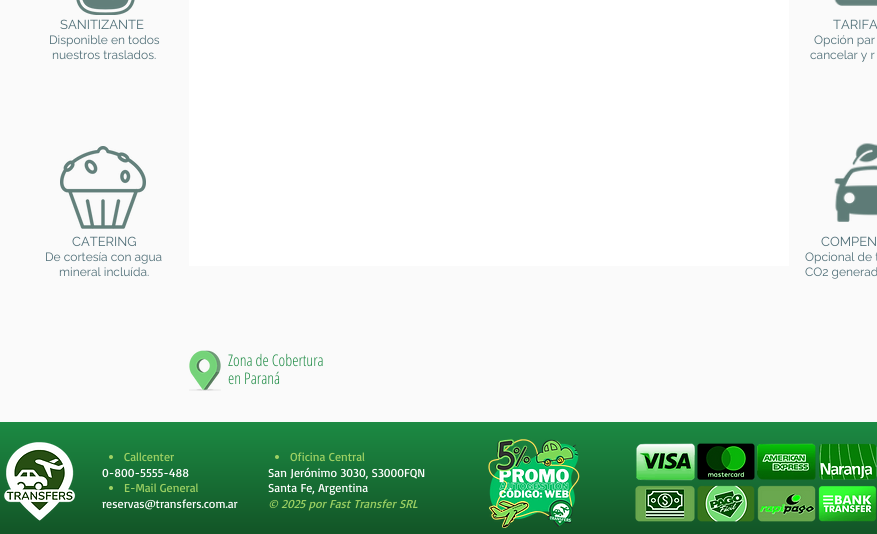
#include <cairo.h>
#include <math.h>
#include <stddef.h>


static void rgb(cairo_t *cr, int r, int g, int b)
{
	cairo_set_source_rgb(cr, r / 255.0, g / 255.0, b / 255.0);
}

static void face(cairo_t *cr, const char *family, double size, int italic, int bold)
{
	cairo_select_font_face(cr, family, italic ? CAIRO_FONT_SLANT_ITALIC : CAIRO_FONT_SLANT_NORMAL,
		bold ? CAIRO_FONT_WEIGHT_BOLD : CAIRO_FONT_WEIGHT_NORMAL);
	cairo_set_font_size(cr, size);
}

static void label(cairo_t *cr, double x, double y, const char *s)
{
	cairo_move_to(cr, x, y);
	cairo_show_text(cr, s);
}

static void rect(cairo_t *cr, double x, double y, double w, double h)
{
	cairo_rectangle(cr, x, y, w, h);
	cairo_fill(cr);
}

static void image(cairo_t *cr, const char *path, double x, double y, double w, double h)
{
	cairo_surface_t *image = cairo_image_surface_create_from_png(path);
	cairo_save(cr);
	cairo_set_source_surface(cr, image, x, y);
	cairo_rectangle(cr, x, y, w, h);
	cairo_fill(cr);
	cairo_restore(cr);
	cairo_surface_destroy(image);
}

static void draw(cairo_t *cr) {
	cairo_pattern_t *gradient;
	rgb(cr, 250, 250, 250);
	cairo_paint(cr);
	rgb(cr, 255, 255, 255);
	rect(cr, 189, 0, 600, 266);
	image(cr, "image0.png", 76, 0, 59, 15);
	image(cr, "image1.png", 834, 0, 43, 6);
	face(cr, "Raleway", 13, 0, 0);
	rgb(cr, 79, 110, 119);
	label(cr, 60, 29, "SANITIZANTE");
	face(cr, "Raleway", 12, 0, 0);
	label(cr, 49, 44, "Disponible en todos");
	label(cr, 52, 59, "nuestros traslados.");
	face(cr, "Raleway", 13, 0, 0);
	label(cr, 833, 29, "TARIFA");
	face(cr, "Raleway", 12, 0, 0);
	label(cr, 814, 44, "Opción par");
	label(cr, 810, 59, "cancelar y r");
	image(cr, "image2.png", 60, 146, 86, 83);
	image(cr, "image3.png", 834, 143, 43, 79);
	face(cr, "Raleway", 13, 0, 0);
	label(cr, 72, 246, "CATERING");
	face(cr, "Raleway", 12, 0, 0);
	label(cr, 45, 261, "De cortesía con agua");
	label(cr, 59, 276, "mineral incluída.");
	face(cr, "Raleway", 13, 0, 0);
	label(cr, 821, 246, "COMPEN");
	face(cr, "Raleway", 12, 0, 0);
	label(cr, 805, 261, "Opcional de t");
	label(cr, 805, 276, "CO2 generad");
	image(cr, "image4.png", 189, 350, 32, 41);
	face(cr, "Open Sans Condensed Light", 16, 0, 0);
	rgb(cr, 28, 138, 67);
	label(cr, 228, 366, "Zona de Cobertura");
	label(cr, 228, 384, "en Paraná");
	gradient = cairo_pattern_create_linear(490, 422, 490, 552);
	cairo_pattern_add_color_stop_rgba(gradient, 0, 0.11, 0.541, 0.263, 1);
	cairo_pattern_add_color_stop_rgba(gradient, 1, 0.067, 0.298, 0.133, 1);
	cairo_set_source(cr, gradient);
	cairo_pattern_destroy(gradient);
	rect(cr, 0, 422, 877, 112);
	image(cr, "image5.png", 4, 442, 72, 79);
	rgb(cr, 158, 209, 99);
	cairo_arc(cr, 111, 457, 2, 0, 2 * M_PI);
	cairo_fill(cr);
	face(cr, "Basic", 12, 0, 0);
	label(cr, 124, 461, "Callcenter");
	rgb(cr, 255, 255, 255);
	label(cr, 102, 477, "0-800-5555-488");
	rgb(cr, 158, 209, 99);
	cairo_new_path(cr);
	cairo_arc(cr, 111, 488, 2, 0, 2 * M_PI);
	cairo_fill(cr);
	label(cr, 124, 492, "E-Mail General");
	rgb(cr, 255, 255, 255);
	label(cr, 102, 508, "reservas@transfers.com.ar");
	rgb(cr, 158, 209, 99);
	cairo_new_path(cr);
	cairo_arc(cr, 277, 457, 2, 0, 2 * M_PI);
	cairo_fill(cr);
	label(cr, 290, 461, "Oficina Central");
	rgb(cr, 255, 255, 255);
	label(cr, 268, 477, "San Jerónimo 3030, S3000FQN");
	label(cr, 268, 492, "Santa Fe, Argentina");
	face(cr, "Basic", 12, 1, 0);
	rgb(cr, 158, 209, 99);
	label(cr, 268, 508, "© 2025 por Fast Transfer SRL");
	image(cr, "image6.png", 488, 439, 92, 89);
	image(cr, "image7.png", 635, 443, 242, 79);
}

int main(void) {
	cairo_surface_t *surface = cairo_image_surface_create(CAIRO_FORMAT_RGB24, 877, 534);
	cairo_t *cr = cairo_create(surface);
	cairo_font_options_t *options = cairo_font_options_create();
	cairo_font_options_set_hint_metrics(options, CAIRO_HINT_METRICS_OFF);
	cairo_font_options_set_hint_style(options, CAIRO_HINT_STYLE_NONE);
	cairo_set_font_options(cr, options);
	cairo_set_miter_limit(cr, 4);
	draw(cr);
	cairo_surface_write_to_png(surface, "render.png");
	cairo_font_options_destroy(options);
	cairo_destroy(cr);
	cairo_surface_destroy(surface);
	return 0;
}
